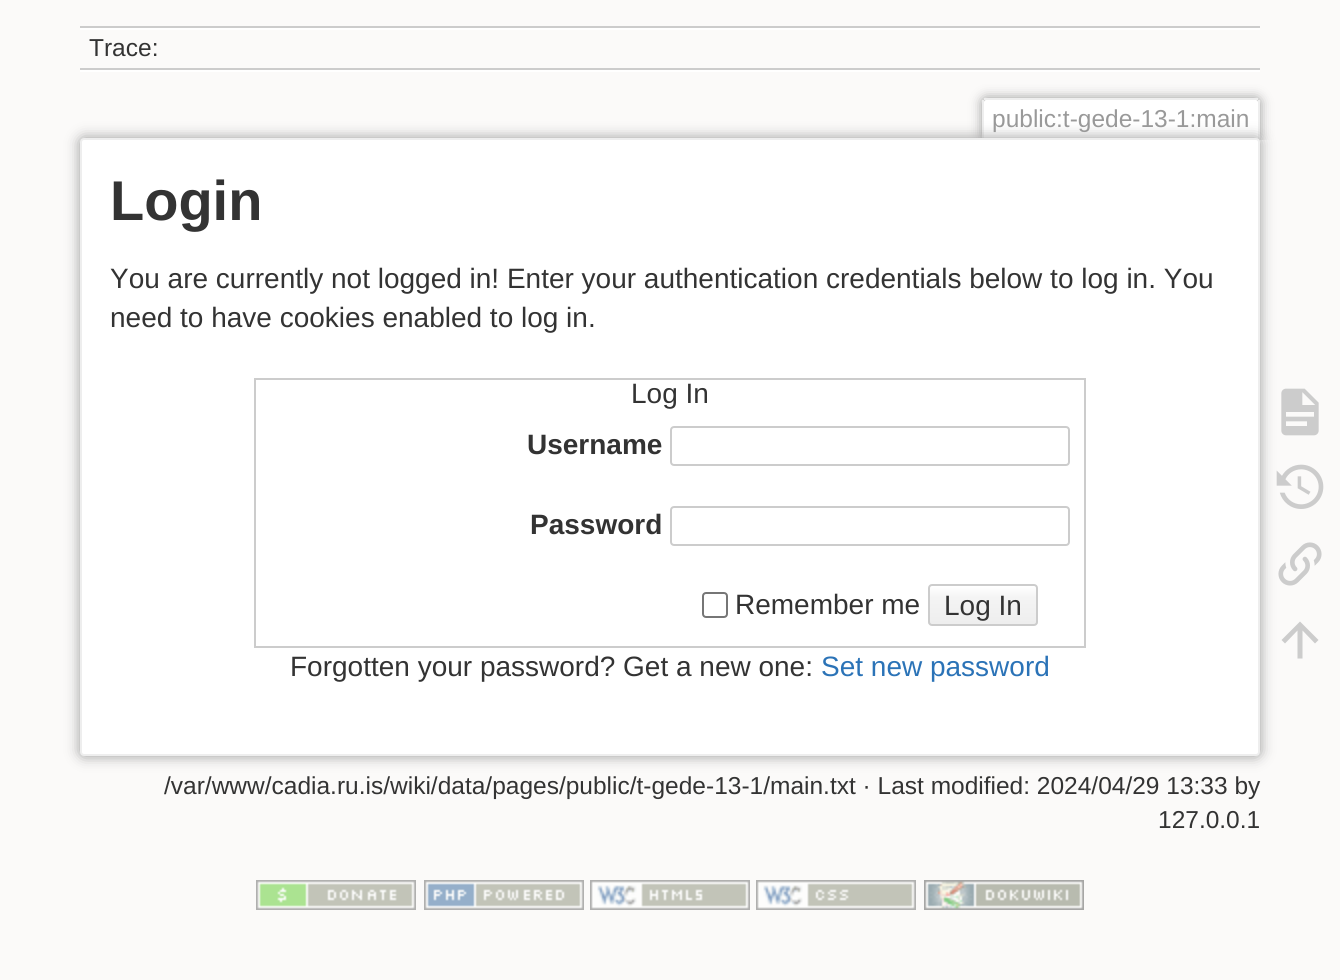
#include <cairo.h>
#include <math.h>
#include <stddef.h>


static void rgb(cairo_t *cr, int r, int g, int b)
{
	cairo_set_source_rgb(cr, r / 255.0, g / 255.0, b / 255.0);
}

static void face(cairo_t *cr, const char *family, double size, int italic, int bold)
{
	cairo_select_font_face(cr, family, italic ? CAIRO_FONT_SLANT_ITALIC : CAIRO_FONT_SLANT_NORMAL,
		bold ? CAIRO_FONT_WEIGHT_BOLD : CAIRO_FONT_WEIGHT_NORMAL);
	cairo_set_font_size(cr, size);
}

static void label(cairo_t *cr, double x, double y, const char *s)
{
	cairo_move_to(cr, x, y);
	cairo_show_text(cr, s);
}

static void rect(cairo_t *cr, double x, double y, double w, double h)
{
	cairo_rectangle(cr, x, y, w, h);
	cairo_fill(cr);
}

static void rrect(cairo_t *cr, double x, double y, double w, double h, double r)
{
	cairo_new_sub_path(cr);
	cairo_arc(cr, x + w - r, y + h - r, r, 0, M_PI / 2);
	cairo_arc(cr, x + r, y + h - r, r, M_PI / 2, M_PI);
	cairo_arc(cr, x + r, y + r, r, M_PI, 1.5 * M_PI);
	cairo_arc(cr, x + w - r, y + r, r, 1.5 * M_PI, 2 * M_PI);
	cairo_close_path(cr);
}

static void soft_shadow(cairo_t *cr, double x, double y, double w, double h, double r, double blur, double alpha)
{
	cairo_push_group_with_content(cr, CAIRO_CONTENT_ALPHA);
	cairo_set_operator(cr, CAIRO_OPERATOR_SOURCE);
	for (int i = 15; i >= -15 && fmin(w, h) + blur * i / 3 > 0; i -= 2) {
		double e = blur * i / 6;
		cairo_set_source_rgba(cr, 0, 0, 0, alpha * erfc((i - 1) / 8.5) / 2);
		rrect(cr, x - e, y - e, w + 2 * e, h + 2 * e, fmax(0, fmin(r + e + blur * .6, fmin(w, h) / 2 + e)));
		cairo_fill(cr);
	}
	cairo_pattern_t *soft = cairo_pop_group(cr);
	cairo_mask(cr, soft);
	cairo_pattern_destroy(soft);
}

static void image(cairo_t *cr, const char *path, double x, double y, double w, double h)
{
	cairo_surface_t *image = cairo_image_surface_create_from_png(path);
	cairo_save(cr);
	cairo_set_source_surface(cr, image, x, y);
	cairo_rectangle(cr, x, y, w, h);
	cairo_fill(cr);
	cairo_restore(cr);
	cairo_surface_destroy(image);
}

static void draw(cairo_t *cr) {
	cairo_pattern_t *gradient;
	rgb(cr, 251, 250, 249);
	cairo_paint(cr);
	rgb(cr, 204, 204, 204);
	rect(cr, 80, 26, 1180, 2);
	rgb(cr, 255, 255, 255);
	rect(cr, 80, 70, 1180, 2);
	rect(cr, 80, 28, 1180, 2);
	rgb(cr, 204, 204, 204);
	rect(cr, 80, 68, 1180, 2);
	face(cr, "Liberation Sans", 24.5, 0, 0);
	rgb(cr, 51, 51, 51);
	label(cr, 89, 56, "Trace:");
	cairo_save(cr);
	cairo_rectangle(cr, 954, 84, 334, 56);
	cairo_clip(cr);
	rgb(cr, 153, 153, 153);
	soft_shadow(cr, 982, 98, 278, 42, 4, 6, 1);
	cairo_restore(cr);
	rgb(cr, 255, 255, 255);
	cairo_new_path(cr);
	cairo_move_to(cr, 986, 100);
	cairo_line_to(cr, 1256, 100);
	cairo_curve_to(cr, 1257, 100, 1258, 101, 1258, 102);
	cairo_line_to(cr, 1258, 140);
	cairo_line_to(cr, 984, 140);
	cairo_line_to(cr, 984, 102);
	cairo_curve_to(cr, 984, 101, 985, 100, 986, 100);
	cairo_close_path(cr);
	cairo_fill(cr);
	rgb(cr, 238, 238, 238);
	rect(cr, 984, 98, 274, 2);
	rect(cr, 1258, 100, 2, 40);
	rect(cr, 982, 100, 2, 40);
	rgb(cr, 153, 153, 153);
	label(cr, 992, 127, "public:t-gede-13-1:main");
	rgb(cr, 153, 153, 153);
	soft_shadow(cr, 80, 138, 1180, 618, 4, 7, 1);
	rgb(cr, 255, 255, 255);
	rrect(cr, 81, 139, 1178, 616, 3);
	cairo_fill_preserve(cr);
	rgb(cr, 238, 238, 238);
	cairo_stroke(cr);
	face(cr, "Liberation Sans", 56, 0, 1);
	rgb(cr, 51, 51, 51);
	label(cr, 110, 220, "Login");
	face(cr, "Liberation Sans", 28, 0, 0);
	label(cr, 110, 288, "You are currently not logged in! Enter your authentication credentials below to log in. You");
	label(cr, 110, 327, "need to have cookies enabled to log in.");
	cairo_rectangle(cr, 255, 379, 830, 268);
	rgb(cr, 204, 204, 204);
	cairo_stroke(cr);
	rgb(cr, 51, 51, 51);
	label(cr, 631, 403, "Log In");
	face(cr, "Liberation Sans", 28, 0, 1);
	label(cr, 527, 454, "Username");
	rrect(cr, 671, 427, 398, 38, 3);
	rgb(cr, 204, 204, 204);
	cairo_stroke(cr);
	rgb(cr, 51, 51, 51);
	label(cr, 530, 534, "Password");
	rrect(cr, 671, 507, 398, 38, 3);
	rgb(cr, 204, 204, 204);
	cairo_stroke(cr);
	rrect(cr, 703, 593, 24, 24, 3);
	rgb(cr, 118, 118, 118);
	cairo_stroke(cr);
	face(cr, "Liberation Sans", 28, 0, 0);
	rgb(cr, 51, 51, 51);
	label(cr, 735, 614, "Remember me");
	cairo_save(cr);
	rrect(cr, 928, 584, 110, 42, 4);
	cairo_clip(cr);
	gradient = cairo_pattern_create_linear(983, 586, 983, 624);
	cairo_pattern_add_color_stop_rgba(gradient, 0, 1, 1, 1, 1);
	cairo_pattern_add_color_stop_rgba(gradient, 0.3, 0.957, 0.957, 0.957, 1);
	cairo_pattern_add_color_stop_rgba(gradient, 0.99, 0.933, 0.933, 0.933, 1);
	cairo_pattern_add_color_stop_rgba(gradient, 0.99, 0.8, 0.8, 0.8, 1);
	cairo_set_source(cr, gradient);
	cairo_pattern_destroy(gradient);
	rect(cr, 928, 586, 110, 38);
	cairo_restore(cr);
	rrect(cr, 929, 585, 108, 40, 3);
	rgb(cr, 204, 204, 204);
	cairo_stroke(cr);
	rgb(cr, 51, 51, 51);
	label(cr, 944, 615, "Log In");
	label(cr, 290, 676, "Forgotten your password? Get a new one:");
	rgb(cr, 43, 115, 183);
	label(cr, 821, 676, "Set new password");
	face(cr, "Liberation Sans", 24.5, 0, 0);
	rgb(cr, 51, 51, 51);
	label(cr, 164, 794, "/var/www/cadia.ru.is/wiki/data/pages/public/t-gede-13-1/main.txt · Last modified: 2024/04/29 13:33 by");
	label(cr, 1158, 828, "127.0.0.1");
	image(cr, "image0.png", 1281, 388, 38, 48);
	image(cr, "image1.png", 1276, 464, 48, 45);
	image(cr, "image2.png", 1278, 542, 44, 44);
	rgb(cr, 204, 204, 204);
	cairo_new_path(cr);
	cairo_move_to(cr, 1302.5, 658.5);
	cairo_line_to(cr, 1297.5, 658.5);
	cairo_line_to(cr, 1297.5, 630.5);
	cairo_line_to(cr, 1285, 643.5);
	cairo_line_to(cr, 1281.5, 640);
	cairo_line_to(cr, 1300, 621.5);
	cairo_line_to(cr, 1318.5, 640);
	cairo_line_to(cr, 1315, 643.5);
	cairo_line_to(cr, 1302.5, 630.5);
	cairo_close_path(cr);
	cairo_fill(cr);
	image(cr, "image3.png", 256, 880, 160, 30);
	image(cr, "image4.png", 424, 880, 160, 30);
	image(cr, "image5.png", 590, 880, 160, 30);
	image(cr, "image6.png", 756, 880, 160, 30);
	image(cr, "image7.png", 924, 880, 160, 30);
}

int main(void) {
	cairo_surface_t *surface = cairo_image_surface_create(CAIRO_FORMAT_RGB24, 1340, 980);
	cairo_t *cr = cairo_create(surface);
	cairo_font_options_t *options = cairo_font_options_create();
	cairo_font_options_set_hint_metrics(options, CAIRO_HINT_METRICS_OFF);
	cairo_font_options_set_hint_style(options, CAIRO_HINT_STYLE_NONE);
	cairo_set_font_options(cr, options);
	cairo_set_miter_limit(cr, 4);
	draw(cr);
	cairo_surface_write_to_png(surface, "render.png");
	cairo_font_options_destroy(options);
	cairo_destroy(cr);
	cairo_surface_destroy(surface);
	return 0;
}
